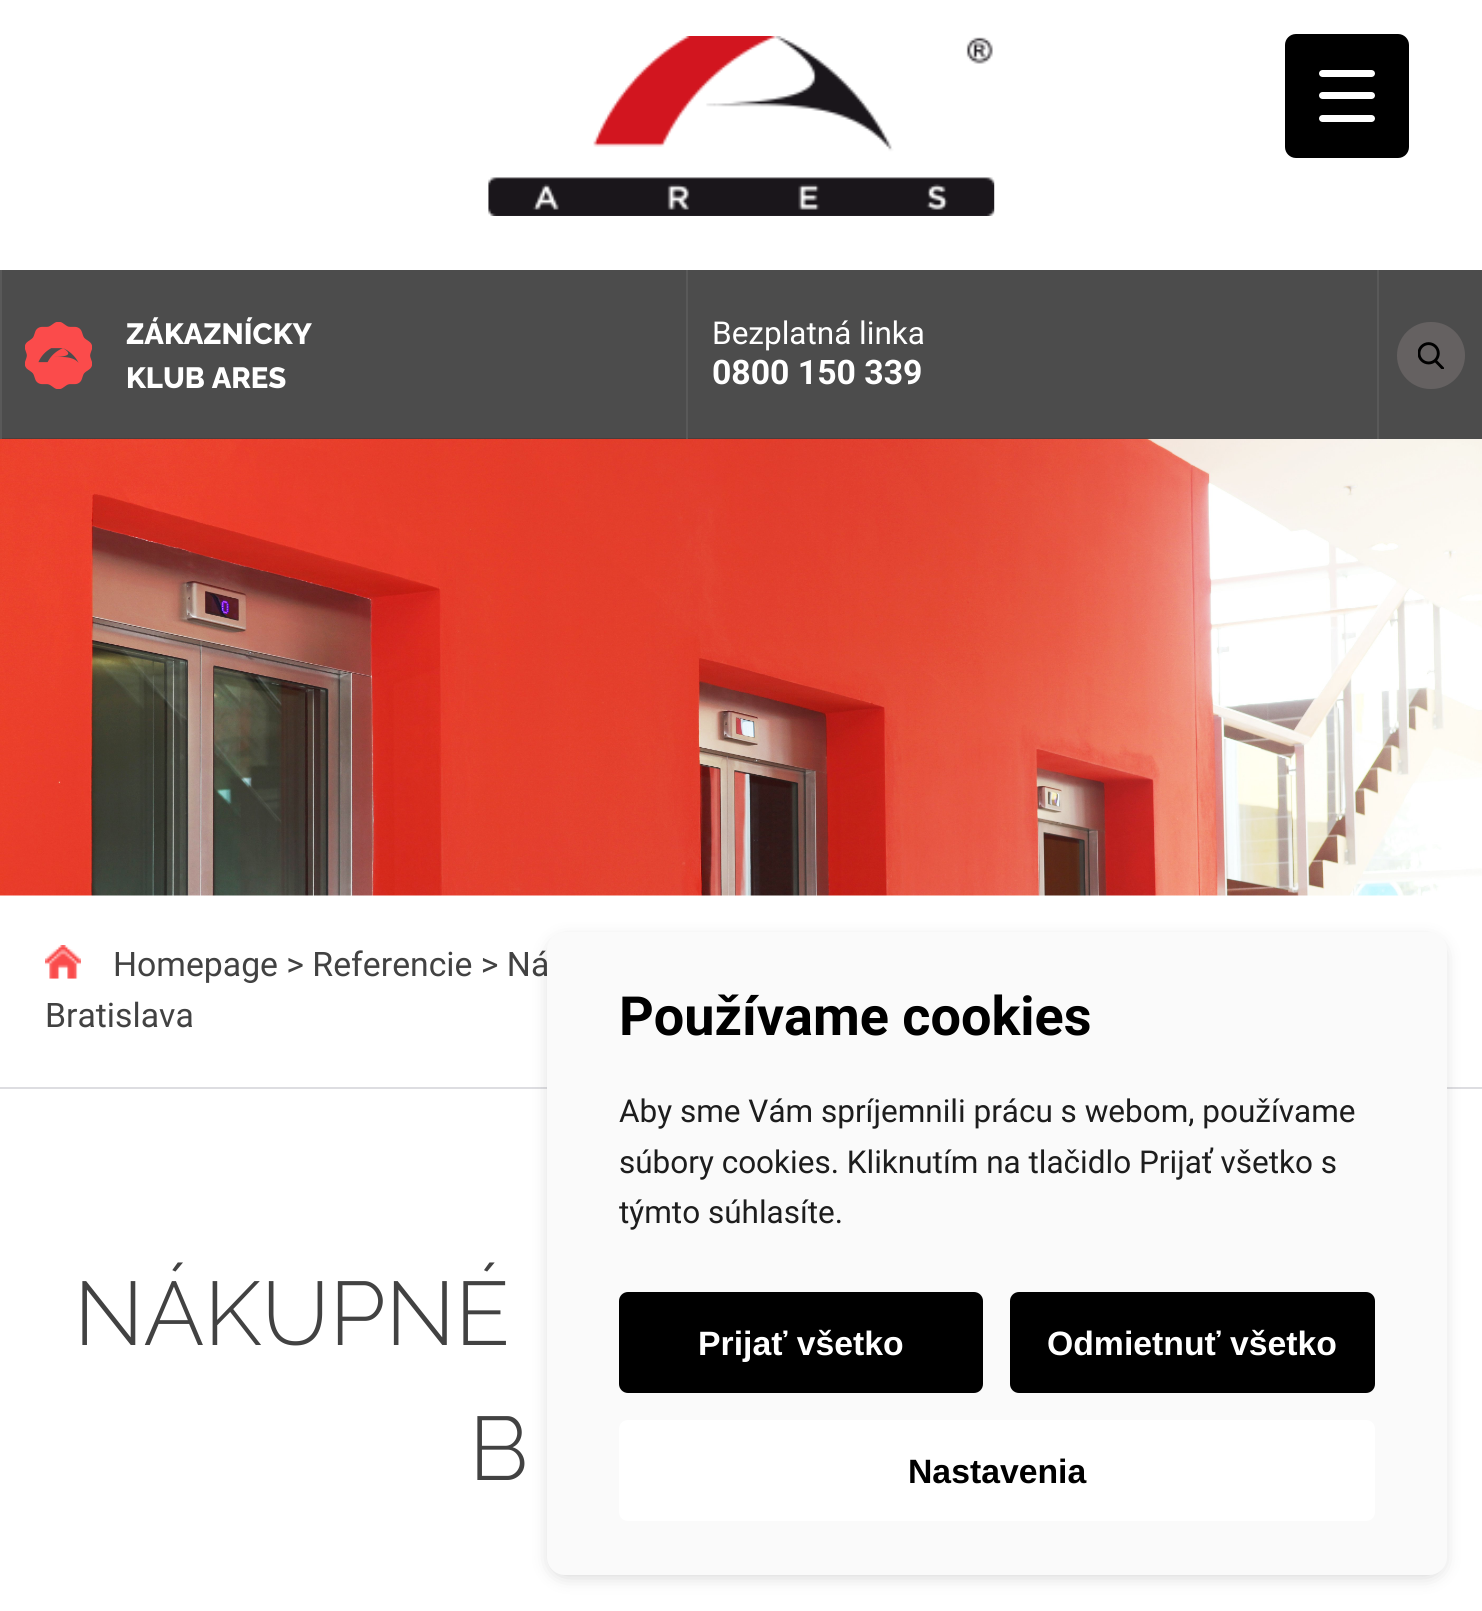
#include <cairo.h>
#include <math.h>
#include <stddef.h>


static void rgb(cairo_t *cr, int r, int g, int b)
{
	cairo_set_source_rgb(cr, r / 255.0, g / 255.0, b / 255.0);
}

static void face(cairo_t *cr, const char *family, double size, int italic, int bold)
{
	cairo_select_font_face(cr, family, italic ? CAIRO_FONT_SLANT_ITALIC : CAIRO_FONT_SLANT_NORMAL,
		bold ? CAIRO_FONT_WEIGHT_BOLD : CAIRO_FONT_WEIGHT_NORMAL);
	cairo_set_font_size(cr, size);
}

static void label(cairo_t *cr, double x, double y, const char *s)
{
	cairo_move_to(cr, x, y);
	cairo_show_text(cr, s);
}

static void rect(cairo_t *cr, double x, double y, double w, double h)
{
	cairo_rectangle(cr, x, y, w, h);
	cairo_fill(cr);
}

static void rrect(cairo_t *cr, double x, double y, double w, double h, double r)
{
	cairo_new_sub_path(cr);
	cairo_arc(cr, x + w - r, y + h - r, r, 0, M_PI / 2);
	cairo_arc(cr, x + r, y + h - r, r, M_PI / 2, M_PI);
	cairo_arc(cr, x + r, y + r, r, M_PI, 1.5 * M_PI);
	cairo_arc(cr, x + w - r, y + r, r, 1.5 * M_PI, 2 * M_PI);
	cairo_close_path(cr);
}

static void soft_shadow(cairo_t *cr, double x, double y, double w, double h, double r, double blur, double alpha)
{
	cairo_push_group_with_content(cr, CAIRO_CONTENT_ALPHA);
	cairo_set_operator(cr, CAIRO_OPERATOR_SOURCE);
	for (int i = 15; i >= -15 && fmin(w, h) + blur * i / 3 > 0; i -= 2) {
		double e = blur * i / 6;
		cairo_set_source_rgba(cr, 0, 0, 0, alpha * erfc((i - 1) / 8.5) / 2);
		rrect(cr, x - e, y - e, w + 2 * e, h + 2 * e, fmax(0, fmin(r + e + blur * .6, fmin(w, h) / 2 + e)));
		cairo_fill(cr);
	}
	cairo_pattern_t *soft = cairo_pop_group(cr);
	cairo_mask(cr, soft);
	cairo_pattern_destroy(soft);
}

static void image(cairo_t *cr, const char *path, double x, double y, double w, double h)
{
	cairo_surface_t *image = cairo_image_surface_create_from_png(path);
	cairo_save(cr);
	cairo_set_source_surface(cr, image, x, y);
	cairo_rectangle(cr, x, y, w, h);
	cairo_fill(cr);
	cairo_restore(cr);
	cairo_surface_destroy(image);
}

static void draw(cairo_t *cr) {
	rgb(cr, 255, 255, 255);
	cairo_paint(cr);
	rgb(cr, 0, 0, 0);
	rrect(cr, 1285, 34, 124, 124, 11);
	cairo_fill(cr);
	rgb(cr, 255, 255, 255);
	rrect(cr, 1319, 92, 56, 7, 3.5);
	cairo_fill(cr);
	rrect(cr, 1319, 70, 56, 7, 3.5);
	cairo_fill(cr);
	rrect(cr, 1319, 115, 56, 7, 3.5);
	cairo_fill(cr);
	image(cr, "image0.png", 488, 36, 507, 180);
	image(cr, "image3.png", 0, 438, 1482, 458);
	cairo_set_source_rgba(cr, 0, 0, 0, 0.7);
	rect(cr, 2, 270, 1480, 169);
	rgb(cr, 89, 89, 89);
	rect(cr, 0, 270, 2, 169);
	image(cr, "image1.png", 25, 322, 67, 67);
	face(cr, "Raleway ExtraBold", 29.25, 0, 0);
	rgb(cr, 255, 255, 255);
	label(cr, 126, 344, "ZÁKAZNÍCKY");
	label(cr, 126, 388, "KLUB ARES");
	rgb(cr, 89, 89, 89);
	rect(cr, 686, 270, 2, 169);
	face(cr, "Roboto", 31.5, 0, 0);
	rgb(cr, 255, 255, 255);
	label(cr, 712, 344, "Bezplatná linka");
	face(cr, "Roboto", 33.75, 0, 1);
	label(cr, 712, 384, "0800 150 339");
	rgb(cr, 89, 89, 89);
	rect(cr, 1377, 270, 2, 169);
	rgb(cr, 101, 97, 97);
	rrect(cr, 1397, 322, 68, 67, 33.5);
	cairo_fill(cr);
	image(cr, "image2.png", 1418, 342, 26, 27);
	rgb(cr, 221, 221, 225);
	rect(cr, 0, 1087, 1482, 2);
	image(cr, "image4.png", 45, 945, 36, 34);
	face(cr, "Roboto", 33.75, 0, 0);
	rgb(cr, 66, 66, 66);
	label(cr, 113, 976, "Homepage > Referencie > Ná");
	label(cr, 45, 1027, "Bratislava");
	face(cr, "Raleway Light", 90, 0, 0);
	label(cr, 74, 1345, "NÁKUPNÉ");
	label(cr, 469, 1480, "B");
	rgb(cr, 0, 0, 0);
	soft_shadow(cr, 551, 941, 891, 634, 14, 9, 0.2);
	rgb(cr, 250, 250, 250);
	rrect(cr, 547, 932, 900, 643, 18);
	cairo_fill(cr);
	face(cr, "Roboto", 54, 0, 1);
	rgb(cr, 0, 0, 0);
	label(cr, 619, 1035, "Používame cookies");
	face(cr, "Roboto", 31.5, 0, 0);
	rgb(cr, 29, 29, 29);
	label(cr, 619, 1122, "Aby sme Vám spríjemnili prácu s webom, používame");
	label(cr, 619, 1173, "súbory cookies. Kliknutím na tlačidlo Prijať všetko s");
	label(cr, 619, 1223, "týmto súhlasíte.");
	rgb(cr, 0, 0, 0);
	rrect(cr, 619, 1292, 364, 101, 9);
	cairo_fill(cr);
	face(cr, "Liberation Sans", 33.75, 0, 1);
	rgb(cr, 255, 255, 255);
	label(cr, 698, 1355, "Prijať všetko");
	rgb(cr, 0, 0, 0);
	rrect(cr, 1010, 1292, 365, 101, 9);
	cairo_fill(cr);
	rgb(cr, 255, 255, 255);
	label(cr, 1047, 1355, "Odmietnuť všetko");
	rrect(cr, 619, 1420, 756, 101, 9);
	cairo_fill(cr);
	rgb(cr, 0, 0, 0);
	label(cr, 908, 1483, "Nastavenia");
}

int main(void) {
	cairo_surface_t *surface = cairo_image_surface_create(CAIRO_FORMAT_RGB24, 1482, 1611);
	cairo_t *cr = cairo_create(surface);
	cairo_font_options_t *options = cairo_font_options_create();
	cairo_font_options_set_hint_metrics(options, CAIRO_HINT_METRICS_OFF);
	cairo_font_options_set_hint_style(options, CAIRO_HINT_STYLE_NONE);
	cairo_set_font_options(cr, options);
	cairo_set_miter_limit(cr, 4);
	draw(cr);
	cairo_surface_write_to_png(surface, "render.png");
	cairo_font_options_destroy(options);
	cairo_destroy(cr);
	cairo_surface_destroy(surface);
	return 0;
}
